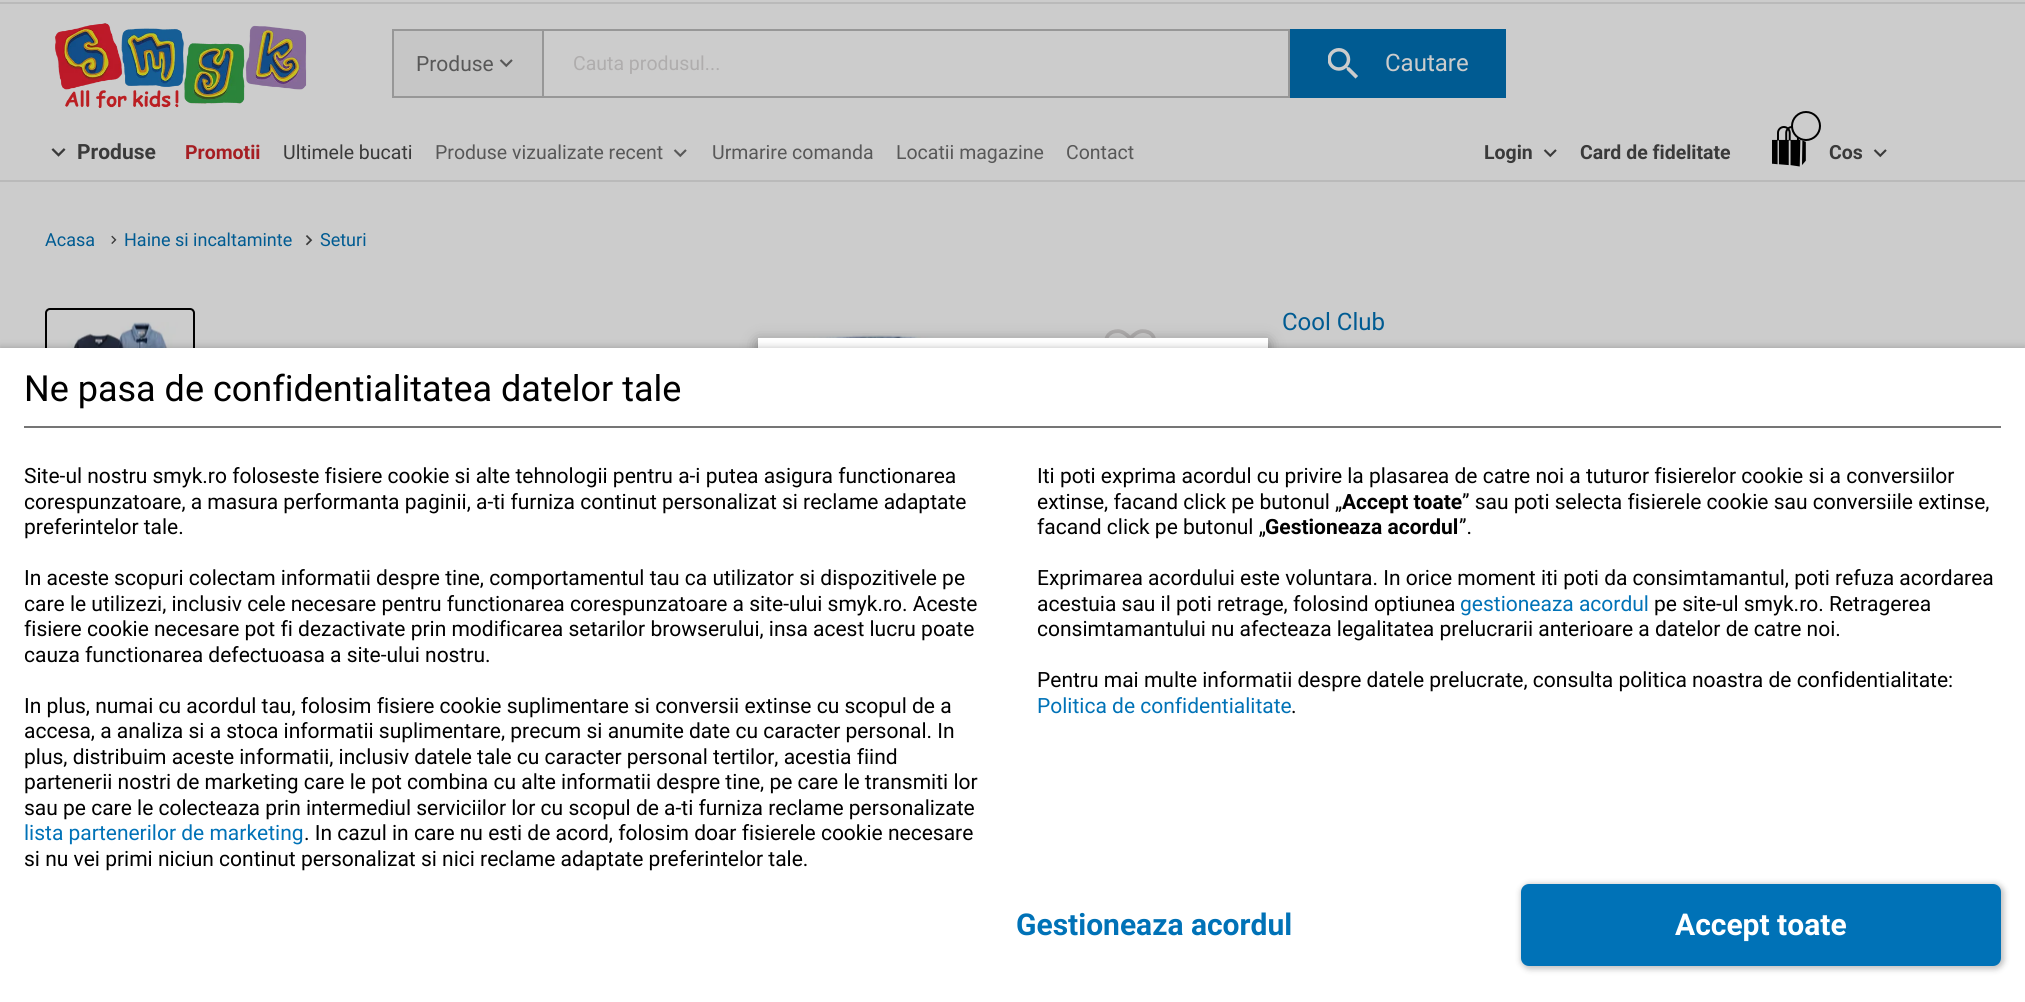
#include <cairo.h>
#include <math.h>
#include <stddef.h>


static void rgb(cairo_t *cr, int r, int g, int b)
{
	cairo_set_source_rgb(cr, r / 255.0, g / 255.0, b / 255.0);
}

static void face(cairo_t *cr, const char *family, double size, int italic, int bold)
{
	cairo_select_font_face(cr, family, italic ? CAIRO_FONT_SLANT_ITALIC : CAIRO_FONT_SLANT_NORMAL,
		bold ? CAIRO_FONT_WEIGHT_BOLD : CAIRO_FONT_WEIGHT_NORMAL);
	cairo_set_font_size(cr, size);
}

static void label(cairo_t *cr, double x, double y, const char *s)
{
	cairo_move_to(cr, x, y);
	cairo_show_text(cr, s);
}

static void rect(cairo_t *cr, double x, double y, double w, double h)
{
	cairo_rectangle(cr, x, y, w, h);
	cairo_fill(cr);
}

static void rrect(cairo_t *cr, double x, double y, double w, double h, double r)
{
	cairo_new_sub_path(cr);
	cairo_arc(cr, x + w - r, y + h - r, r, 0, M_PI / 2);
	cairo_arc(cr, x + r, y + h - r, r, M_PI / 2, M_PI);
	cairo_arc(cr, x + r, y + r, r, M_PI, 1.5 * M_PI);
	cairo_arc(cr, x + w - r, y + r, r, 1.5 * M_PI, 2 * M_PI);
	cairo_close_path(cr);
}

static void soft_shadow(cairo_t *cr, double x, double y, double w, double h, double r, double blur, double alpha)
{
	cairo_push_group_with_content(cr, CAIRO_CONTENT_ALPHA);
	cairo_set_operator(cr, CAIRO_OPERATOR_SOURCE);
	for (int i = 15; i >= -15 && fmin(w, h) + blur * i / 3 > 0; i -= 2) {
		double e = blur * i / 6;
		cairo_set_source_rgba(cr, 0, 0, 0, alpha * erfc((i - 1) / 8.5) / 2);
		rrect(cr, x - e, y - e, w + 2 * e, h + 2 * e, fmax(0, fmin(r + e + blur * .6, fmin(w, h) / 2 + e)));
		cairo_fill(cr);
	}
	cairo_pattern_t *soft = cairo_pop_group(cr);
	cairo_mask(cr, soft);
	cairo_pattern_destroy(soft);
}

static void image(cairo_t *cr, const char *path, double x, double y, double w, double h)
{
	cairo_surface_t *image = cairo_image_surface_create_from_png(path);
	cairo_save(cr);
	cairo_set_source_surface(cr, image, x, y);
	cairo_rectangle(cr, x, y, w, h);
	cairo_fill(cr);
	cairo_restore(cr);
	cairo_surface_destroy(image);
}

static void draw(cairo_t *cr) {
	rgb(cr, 204, 204, 204);
	cairo_paint(cr);
	rgb(cr, 186, 186, 186);
	rect(cr, 0, 180, 2025, 2);
	rect(cr, 0, 2, 2025, 2);
	image(cr, "image10.png", 301, 333, 826, 15);
	image(cr, "image11.png", 1104, 329, 52, 9);
	rgb(cr, 0, 0, 0);
	soft_shadow(cr, 758, 342, 510, 329, 0, 7.5, 0.4);
	rgb(cr, 255, 255, 255);
	rect(cr, 758, 338, 510, 10);
	image(cr, "image0.png", 55, 23, 252, 85);
	rgb(cr, 198, 198, 198);
	rect(cr, 394, 31, 148, 65);
	rgb(cr, 151, 151, 151);
	rect(cr, 392, 29, 150, 2);
	rect(cr, 392, 96, 150, 2);
	rect(cr, 392, 29, 2, 69);
	face(cr, "Roboto", 21, 0, 0);
	rgb(cr, 88, 88, 88);
	label(cr, 416, 71, "Produse");
	image(cr, "image1.png", 499, 59, 14, 9);
	cairo_rectangle(cr, 543, 30, 746, 67);
	rgb(cr, 151, 151, 151);
	cairo_stroke(cr);
	face(cr, "Roboto", 19.5, 0, 0);
	rgb(cr, 175, 173, 173);
	label(cr, 573, 70, "Cauta produsul...");
	rgb(cr, 0, 91, 146);
	rect(cr, 1290, 29, 216, 69);
	image(cr, "image2.png", 1328, 48, 30, 31);
	face(cr, "Roboto", 24, 0, 0);
	rgb(cr, 204, 204, 204);
	label(cr, 1385, 71, "Cautare");
	image(cr, "image3.png", 51, 148, 15, 9);
	face(cr, "Roboto", 21, 0, 1);
	rgb(cr, 58, 58, 58);
	label(cr, 77, 159, "Produse");
	face(cr, "Roboto", 19.5, 0, 1);
	label(cr, 1484, 159, "Login");
	image(cr, "image4.png", 1543, 149, 14, 9);
	label(cr, 1580, 159, "Card de fidelitate");
	image(cr, "image5.png", 1772, 126, 34, 41);
	rgb(cr, 204, 204, 204);
	cairo_arc(cr, 1806, 126, 14, 0, 2 * M_PI);
	cairo_fill_preserve(cr);
	rgb(cr, 0, 0, 0);
	cairo_stroke(cr);
	rgb(cr, 58, 58, 58);
	label(cr, 1829, 159, "Cos");
	image(cr, "image4.png", 1873, 149, 14, 9);
	rrect(cr, 46, 309, 148, 148, 4);
	rgb(cr, 0, 0, 0);
	cairo_stroke(cr);
	image(cr, "image9.png", 64, 322, 115, 26);
	rgb(cr, 0, 0, 0);
	soft_shadow(cr, 0, 348, 2025, 654, 0, 4, 0.25);
	rgb(cr, 255, 255, 255);
	rect(cr, 0, 348, 2025, 654);
	rgb(cr, 117, 117, 117);
	rect(cr, 24, 426, 1977, 2);
	face(cr, "Roboto", 36, 0, 0);
	rgb(cr, 0, 0, 0);
	label(cr, 24, 401, "Ne pasa de confidentialitatea datelor tale");
	face(cr, "Roboto", 21, 0, 0);
	label(cr, 24, 483, "Site-ul nostru smyk.ro foloseste fisiere cookie si alte tehnologii pentru a-i putea asigura functionarea");
	label(cr, 24, 509, "corespunzatoare, a masura performanta paginii, a-ti furniza continut personalizat si reclame adaptate");
	label(cr, 24, 534, "preferintelor tale.");
	label(cr, 24, 585, "In aceste scopuri colectam informatii despre tine, comportamentul tau ca utilizator si dispozitivele pe");
	label(cr, 24, 611, "care le utilizezi, inclusiv cele necesare pentru functionarea corespunzatoare a site-ului smyk.ro. Aceste");
	label(cr, 24, 636, "fisiere cookie necesare pot fi dezactivate prin modificarea setarilor browserului, insa acest lucru poate");
	label(cr, 24, 662, "cauza functionarea defectuoasa a site-ului nostru.");
	label(cr, 24, 713, "In plus, numai cu acordul tau, folosim fisiere cookie suplimentare si conversii extinse cu scopul de a");
	label(cr, 24, 738, "accesa, a analiza si a stoca informatii suplimentare, precum si anumite date cu caracter personal. In");
	label(cr, 24, 764, "plus, distribuim aceste informatii, inclusiv datele tale cu caracter personal tertilor, acestia fiind");
	label(cr, 24, 789, "partenerii nostri de marketing care le pot combina cu alte informatii despre tine, pe care le transmiti lor");
	label(cr, 24, 815, "sau pe care le colecteaza prin intermediul serviciilor lor cu scopul de a-ti furniza reclame personalizate");
	rgb(cr, 0, 114, 183);
	label(cr, 24, 840, "lista partenerilor de marketing");
	rgb(cr, 0, 0, 0);
	label(cr, 304, 840, ". In cazul in care nu esti de acord, folosim doar fisierele cookie necesare");
	label(cr, 24, 866, "si nu vei primi niciun continut personalizat si nici reclame adaptate preferintelor tale.");
	label(cr, 1037, 483, "Iti poti exprima acordul cu privire la plasarea de catre noi a tuturor fisierelor cookie si a conversiilor");
	label(cr, 1037, 509, "extinse, facand click pe butonul „");
	face(cr, "Roboto", 21, 0, 1);
	label(cr, 1342, 509, "Accept toate");
	face(cr, "Roboto", 21, 0, 0);
	label(cr, 1462, 509, "” sau poti selecta fisierele cookie sau conversiile extinse,");
	label(cr, 1037, 534, "facand click pe butonul „");
	face(cr, "Roboto", 21, 0, 1);
	label(cr, 1265, 534, "Gestioneaza acordul");
	face(cr, "Roboto", 21, 0, 0);
	label(cr, 1459, 534, "”.");
	label(cr, 1037, 585, "Exprimarea acordului este voluntara. In orice moment iti poti da consimtamantul, poti refuza acordarea");
	label(cr, 1037, 611, "acestuia sau il poti retrage, folosind optiunea");
	rgb(cr, 0, 114, 183);
	label(cr, 1460, 611, "gestioneaza acordul");
	rgb(cr, 0, 0, 0);
	label(cr, 1654, 611, "pe site-ul smyk.ro. Retragerea");
	label(cr, 1037, 636, "consimtamantului nu afecteaza legalitatea prelucrarii anterioare a datelor de catre noi.");
	label(cr, 1037, 687, "Pentru mai multe informatii despre datele prelucrate, consulta politica noastra de confidentialitate:");
	rgb(cr, 0, 114, 183);
	label(cr, 1037, 713, "Politica de confidentialitate");
	rgb(cr, 0, 0, 0);
	label(cr, 1291, 713, ".");
	face(cr, "Roboto", 30, 0, 1);
	rgb(cr, 0, 114, 183);
	label(cr, 1016, 935, "Gestioneaza acordul");
	rgb(cr, 0, 0, 0);
	soft_shadow(cr, 1521, 884, 483, 85, 9, 3, 0.25);
	rgb(cr, 0, 114, 183);
	rrect(cr, 1522, 885, 478, 80, 7);
	cairo_fill_preserve(cr);
	cairo_stroke(cr);
	rgb(cr, 255, 255, 255);
	label(cr, 1675, 935, "Accept toate");
	face(cr, "Roboto", 19.5, 0, 1);
	rgb(cr, 166, 30, 35);
	label(cr, 185, 159, "Promotii");
	face(cr, "Roboto", 19.5, 0, 0);
	rgb(cr, 58, 58, 58);
	label(cr, 283, 159, "Ultimele bucati");
	rgb(cr, 88, 88, 88);
	label(cr, 435, 159, "Produse vizualizate recent");
	image(cr, "image6.png", 673, 149, 14, 9);
	label(cr, 712, 159, "Urmarire comanda");
	label(cr, 896, 159, "Locatii magazine");
	label(cr, 1066, 159, "Contact");
	face(cr, "Roboto", 18, 0, 0);
	rgb(cr, 0, 91, 146);
	label(cr, 45, 246, "Acasa");
	image(cr, "image7.png", 111, 235, 6, 9);
	label(cr, 124, 246, "Haine si incaltaminte");
	image(cr, "image8.png", 305, 235, 8, 11);
	label(cr, 320, 246, "Seturi");
	face(cr, "Roboto", 24, 0, 0);
	label(cr, 1282, 330, "Cool Club");
}

int main(void) {
	cairo_surface_t *surface = cairo_image_surface_create(CAIRO_FORMAT_RGB24, 2025, 1002);
	cairo_t *cr = cairo_create(surface);
	cairo_font_options_t *options = cairo_font_options_create();
	cairo_font_options_set_hint_metrics(options, CAIRO_HINT_METRICS_OFF);
	cairo_font_options_set_hint_style(options, CAIRO_HINT_STYLE_NONE);
	cairo_set_font_options(cr, options);
	cairo_set_miter_limit(cr, 4);
	draw(cr);
	cairo_surface_write_to_png(surface, "render.png");
	cairo_font_options_destroy(options);
	cairo_destroy(cr);
	cairo_surface_destroy(surface);
	return 0;
}
